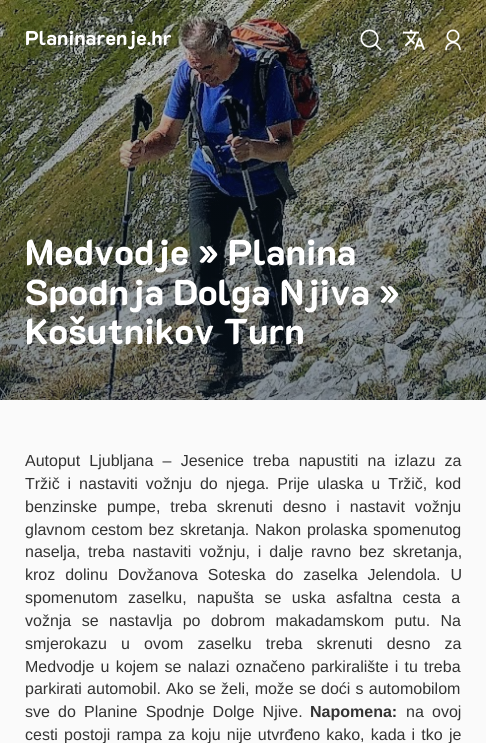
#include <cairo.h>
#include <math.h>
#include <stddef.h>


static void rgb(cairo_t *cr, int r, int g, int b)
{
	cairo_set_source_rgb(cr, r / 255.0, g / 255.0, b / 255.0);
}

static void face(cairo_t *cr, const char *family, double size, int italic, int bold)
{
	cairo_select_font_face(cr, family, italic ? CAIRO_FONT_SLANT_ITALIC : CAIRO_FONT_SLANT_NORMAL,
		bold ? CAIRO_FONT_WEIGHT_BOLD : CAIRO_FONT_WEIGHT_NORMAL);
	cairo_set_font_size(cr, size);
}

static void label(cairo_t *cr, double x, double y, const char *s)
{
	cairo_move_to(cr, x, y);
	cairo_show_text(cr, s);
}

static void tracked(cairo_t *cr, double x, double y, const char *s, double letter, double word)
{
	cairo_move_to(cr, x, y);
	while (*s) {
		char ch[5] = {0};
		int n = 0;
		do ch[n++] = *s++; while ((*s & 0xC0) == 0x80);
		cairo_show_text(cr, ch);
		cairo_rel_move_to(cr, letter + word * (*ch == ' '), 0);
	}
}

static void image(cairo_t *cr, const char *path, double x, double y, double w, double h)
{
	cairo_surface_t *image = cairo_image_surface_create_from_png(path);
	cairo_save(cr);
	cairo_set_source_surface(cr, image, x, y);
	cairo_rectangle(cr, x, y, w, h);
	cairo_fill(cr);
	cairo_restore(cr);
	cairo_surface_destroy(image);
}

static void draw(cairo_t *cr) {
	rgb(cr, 250, 250, 250);
	cairo_paint(cr);
	image(cr, "image0.png", 0, 0, 486, 400);
	face(cr, "K2D ExtraBold", 20, 0, 0);
	rgb(cr, 255, 255, 255);
	label(cr, 25, 45, "Planinarenje.hr");
	image(cr, "image1.png", 360, 29, 22, 22);
	image(cr, "image2.png", 403, 29, 22, 21);
	image(cr, "image3.png", 445, 29, 16, 22);
	face(cr, "K2D ExtraBold", 36, 0, 0);
	label(cr, 25, 265, "Medvodje » Planina");
	label(cr, 25, 305, "Spodnja Dolga Njiva »");
	label(cr, 25, 344, "Košutnikov Turn");
	face(cr, "Liberation Sans", 16, 0, 0);
	rgb(cr, 51, 51, 51);
	tracked(cr, 25, 466, "Autoput Ljubljana – Jesenice treba napustiti na izlazu za", 0, 4.75);
	tracked(cr, 25, 489, "Tržič i nastaviti vožnju do njega. Prije ulaska u Tržič, kod", 0, 3.5);
	tracked(cr, 25, 512, "benzinske pumpe, treba skrenuti desno i nastavit vožnju", 0, 5.5);
	tracked(cr, 25, 535, "glavnom cestom bez skretanja. Nakon prolaska spomenutog", 0, 1.25);
	tracked(cr, 25, 557, "naselja, treba nastaviti vožnju, i dalje ravno bez skretanja,", 0, 3.5);
	tracked(cr, 25, 580, "kroz dolinu Dovžanova Soteska do zaselka Jelendola. U", 0, 5.5);
	tracked(cr, 25, 603, "spomenutom zaselku, napušta se uska asfaltna cesta a", 0, 6);
	tracked(cr, 25, 626, "vožnja se nastavlja po dobrom makadamskom putu. Na", 0, 6);
	tracked(cr, 25, 649, "smjerokazu u ovom zaselku treba skrenuti desno za", 0, 9.75);
	tracked(cr, 25, 672, "Medvodje u kojem se nalazi označeno parkiralište i tu treba", 0, 1.75);
	tracked(cr, 25, 694, "parkirati automobil. Ako se želi, može se doći s automobilom", 0, 0.75);
	tracked(cr, 25, 717, "sve do Planine Spodnje Dolge Njive.", 0, 3.75);
	face(cr, "Liberation Sans", 16, 0, 1);
	label(cr, 310, 717, "Napomena:");
	face(cr, "Liberation Sans", 16, 0, 0);
	tracked(cr, 406, 717, "na ovoj", 0, 3.75);
	tracked(cr, 25, 740, "cesti postoji rampa za koju nije utvrđeno kako, kada i tko je", 0, 1.75);
}

int main(void) {
	cairo_surface_t *surface = cairo_image_surface_create(CAIRO_FORMAT_RGB24, 486, 743);
	cairo_t *cr = cairo_create(surface);
	cairo_font_options_t *options = cairo_font_options_create();
	cairo_font_options_set_hint_metrics(options, CAIRO_HINT_METRICS_OFF);
	cairo_font_options_set_hint_style(options, CAIRO_HINT_STYLE_NONE);
	cairo_set_font_options(cr, options);
	cairo_set_miter_limit(cr, 4);
	draw(cr);
	cairo_surface_write_to_png(surface, "render.png");
	cairo_font_options_destroy(options);
	cairo_destroy(cr);
	cairo_surface_destroy(surface);
	return 0;
}
